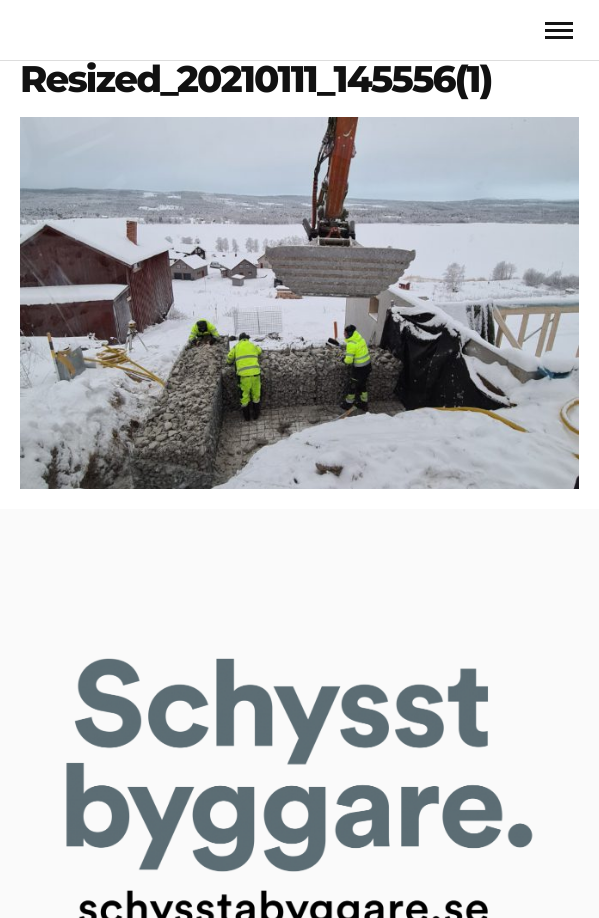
#include <cairo.h>
#include <math.h>
#include <stddef.h>


static void rgb(cairo_t *cr, int r, int g, int b)
{
	cairo_set_source_rgb(cr, r / 255.0, g / 255.0, b / 255.0);
}

static void face(cairo_t *cr, const char *family, double size, int italic, int bold)
{
	cairo_select_font_face(cr, family, italic ? CAIRO_FONT_SLANT_ITALIC : CAIRO_FONT_SLANT_NORMAL,
		bold ? CAIRO_FONT_WEIGHT_BOLD : CAIRO_FONT_WEIGHT_NORMAL);
	cairo_set_font_size(cr, size);
}

static void tracked(cairo_t *cr, double x, double y, const char *s, double letter, double word)
{
	cairo_move_to(cr, x, y);
	while (*s) {
		char ch[5] = {0};
		int n = 0;
		do ch[n++] = *s++; while ((*s & 0xC0) == 0x80);
		cairo_show_text(cr, ch);
		cairo_rel_move_to(cr, letter + word * (*ch == ' '), 0);
	}
}

static void rect(cairo_t *cr, double x, double y, double w, double h)
{
	cairo_rectangle(cr, x, y, w, h);
	cairo_fill(cr);
}

static void image(cairo_t *cr, const char *path, double x, double y, double w, double h)
{
	cairo_surface_t *image = cairo_image_surface_create_from_png(path);
	cairo_save(cr);
	cairo_set_source_surface(cr, image, x, y);
	cairo_rectangle(cr, x, y, w, h);
	cairo_fill(cr);
	cairo_restore(cr);
	cairo_surface_destroy(image);
}

static void draw(cairo_t *cr) {
	rgb(cr, 255, 255, 255);
	cairo_paint(cr);
	rgb(cr, 221, 221, 221);
	rect(cr, 0, 60, 599, 1);
	rgb(cr, 21, 21, 21);
	rect(cr, 545, 29, 28, 3);
	rect(cr, 545, 22, 28, 3);
	rect(cr, 545, 36, 28, 3);
	face(cr, "Montserrat ExtraBold", 37, 0, 0);
	rgb(cr, 17, 17, 17);
	tracked(cr, 20, 92, "Resized_20210111_145556(1)", -1.85, 0);
	image(cr, "image0.png", 20, 117, 559, 372);
	rgb(cr, 250, 250, 250);
	rect(cr, 0, 509, 599, 409);
	image(cr, "image1.png", 66, 658, 467, 260);
}

int main(void) {
	cairo_surface_t *surface = cairo_image_surface_create(CAIRO_FORMAT_RGB24, 599, 918);
	cairo_t *cr = cairo_create(surface);
	cairo_font_options_t *options = cairo_font_options_create();
	cairo_font_options_set_hint_metrics(options, CAIRO_HINT_METRICS_OFF);
	cairo_font_options_set_hint_style(options, CAIRO_HINT_STYLE_NONE);
	cairo_set_font_options(cr, options);
	cairo_set_miter_limit(cr, 4);
	draw(cr);
	cairo_surface_write_to_png(surface, "render.png");
	cairo_font_options_destroy(options);
	cairo_destroy(cr);
	cairo_surface_destroy(surface);
	return 0;
}
